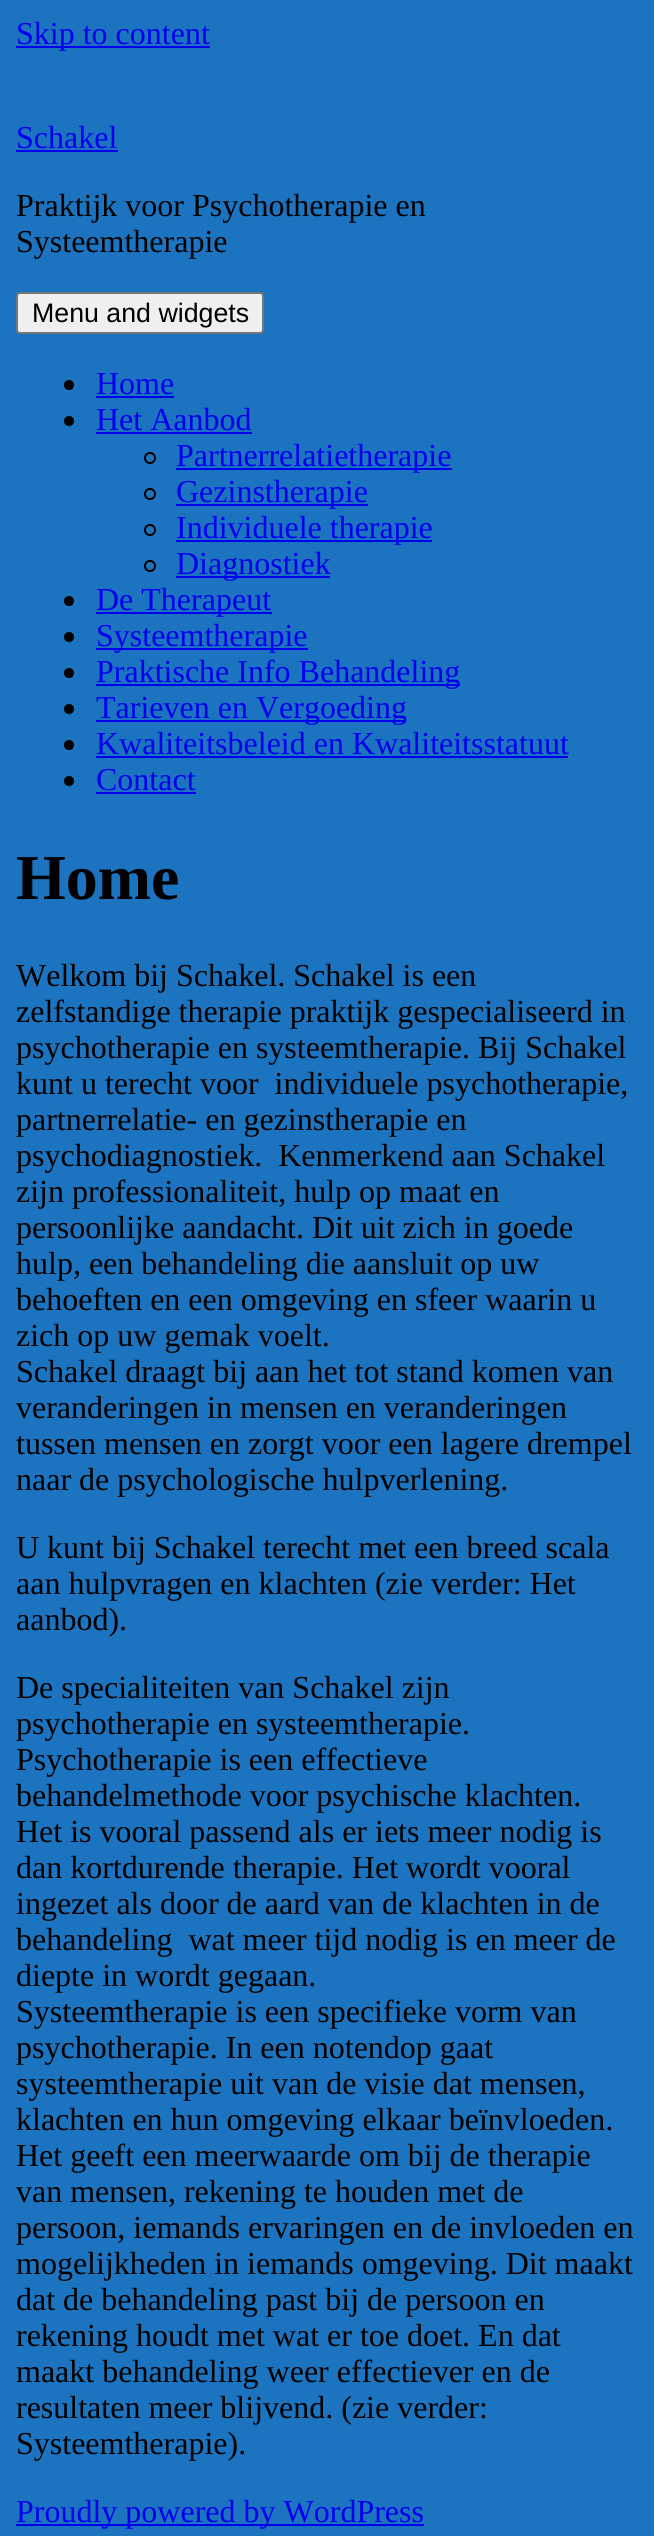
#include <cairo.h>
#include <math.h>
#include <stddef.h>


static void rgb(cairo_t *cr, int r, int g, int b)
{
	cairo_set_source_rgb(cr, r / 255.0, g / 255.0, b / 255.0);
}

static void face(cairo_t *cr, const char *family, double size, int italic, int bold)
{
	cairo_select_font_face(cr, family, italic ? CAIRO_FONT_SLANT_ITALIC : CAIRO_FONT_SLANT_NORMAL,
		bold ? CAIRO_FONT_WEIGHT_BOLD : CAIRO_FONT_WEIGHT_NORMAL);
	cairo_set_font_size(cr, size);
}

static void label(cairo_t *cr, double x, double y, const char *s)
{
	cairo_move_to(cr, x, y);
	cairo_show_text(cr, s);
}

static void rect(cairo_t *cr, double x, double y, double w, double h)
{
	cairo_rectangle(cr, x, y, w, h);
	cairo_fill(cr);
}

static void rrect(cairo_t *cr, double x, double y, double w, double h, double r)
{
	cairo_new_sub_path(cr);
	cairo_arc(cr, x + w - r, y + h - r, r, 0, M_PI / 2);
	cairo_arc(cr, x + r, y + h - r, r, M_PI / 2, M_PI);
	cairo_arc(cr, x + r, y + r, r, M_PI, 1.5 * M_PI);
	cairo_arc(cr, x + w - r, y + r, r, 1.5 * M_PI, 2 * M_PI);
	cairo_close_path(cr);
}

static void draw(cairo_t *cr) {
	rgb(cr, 28, 115, 191);
	cairo_paint(cr);
	rgb(cr, 0, 0, 238);
	rect(cr, 16, 46, 194, 2);
	face(cr, "Liberation Serif", 32, 0, 0);
	label(cr, 16, 44, "Skip to content");
	label(cr, 16, 148, "Schakel");
	rect(cr, 16, 150, 102, 2);
	rgb(cr, 0, 0, 0);
	label(cr, 16, 216, "Praktijk voor Psychotherapie en");
	label(cr, 16, 252, "Systeemtherapie");
	rgb(cr, 239, 239, 239);
	rrect(cr, 17, 293, 246, 40, 3);
	cairo_fill_preserve(cr);
	rgb(cr, 118, 118, 118);
	cairo_stroke(cr);
	face(cr, "Liberation Sans", 26.75, 0, 0);
	rgb(cr, 0, 0, 0);
	label(cr, 32, 322, "Menu and widgets");
	cairo_new_path(cr);
	cairo_arc(cr, 69, 385, 5, 0, 2 * M_PI);
	cairo_fill(cr);
	face(cr, "Liberation Serif", 32, 0, 0);
	rgb(cr, 0, 0, 238);
	label(cr, 96, 394, "Home");
	rect(cr, 96, 396, 78, 2);
	rgb(cr, 0, 0, 0);
	cairo_new_path(cr);
	cairo_arc(cr, 69, 421, 5, 0, 2 * M_PI);
	cairo_fill(cr);
	rgb(cr, 0, 0, 238);
	label(cr, 96, 430, "Het Aanbod");
	rect(cr, 96, 432, 156, 2);
	cairo_new_path(cr);
	cairo_arc(cr, 150, 458, 5, 0, 2 * M_PI);
	rgb(cr, 0, 0, 0);
	cairo_stroke(cr);
	rgb(cr, 0, 0, 238);
	rect(cr, 176, 468, 276, 2);
	label(cr, 176, 466, "Partnerrelatietherapie");
	cairo_new_path(cr);
	cairo_arc(cr, 150, 494, 5, 0, 2 * M_PI);
	rgb(cr, 0, 0, 0);
	cairo_stroke(cr);
	rgb(cr, 0, 0, 238);
	rect(cr, 176, 504, 192, 2);
	label(cr, 176, 502, "Gezinstherapie");
	cairo_new_path(cr);
	cairo_arc(cr, 150, 530, 5, 0, 2 * M_PI);
	rgb(cr, 0, 0, 0);
	cairo_stroke(cr);
	rgb(cr, 0, 0, 238);
	rect(cr, 176, 540, 256, 2);
	label(cr, 176, 538, "Individuele therapie");
	cairo_new_path(cr);
	cairo_arc(cr, 150, 566, 5, 0, 2 * M_PI);
	rgb(cr, 0, 0, 0);
	cairo_stroke(cr);
	rgb(cr, 0, 0, 238);
	rect(cr, 176, 576, 154, 2);
	label(cr, 176, 574, "Diagnostiek");
	rgb(cr, 0, 0, 0);
	cairo_new_path(cr);
	cairo_arc(cr, 69, 601, 5, 0, 2 * M_PI);
	cairo_fill(cr);
	rgb(cr, 0, 0, 238);
	rect(cr, 96, 612, 176, 2);
	label(cr, 96, 610, "De Therapeut");
	rgb(cr, 0, 0, 0);
	cairo_new_path(cr);
	cairo_arc(cr, 69, 637, 5, 0, 2 * M_PI);
	cairo_fill(cr);
	rgb(cr, 0, 0, 238);
	rect(cr, 96, 648, 212, 2);
	label(cr, 96, 646, "Systeemtherapie");
	rgb(cr, 0, 0, 0);
	cairo_new_path(cr);
	cairo_arc(cr, 69, 673, 5, 0, 2 * M_PI);
	cairo_fill(cr);
	rgb(cr, 0, 0, 238);
	rect(cr, 96, 684, 364, 2);
	label(cr, 96, 682, "Praktische Info Behandeling");
	rgb(cr, 0, 0, 0);
	cairo_new_path(cr);
	cairo_arc(cr, 69, 709, 5, 0, 2 * M_PI);
	cairo_fill(cr);
	rgb(cr, 0, 0, 238);
	rect(cr, 96, 720, 310, 2);
	label(cr, 96, 718, "Tarieven en Vergoeding");
	rgb(cr, 0, 0, 0);
	cairo_new_path(cr);
	cairo_arc(cr, 69, 745, 5, 0, 2 * M_PI);
	cairo_fill(cr);
	rgb(cr, 0, 0, 238);
	label(cr, 96, 754, "Kwaliteitsbeleid en Kwaliteitsstatuut");
	rect(cr, 96, 756, 472, 2);
	rgb(cr, 0, 0, 0);
	cairo_new_path(cr);
	cairo_arc(cr, 69, 781, 5, 0, 2 * M_PI);
	cairo_fill(cr);
	rgb(cr, 0, 0, 238);
	label(cr, 96, 790, "Contact");
	rect(cr, 96, 792, 100, 2);
	face(cr, "Liberation Serif", 64, 0, 1);
	rgb(cr, 0, 0, 0);
	label(cr, 16, 899, "Home");
	face(cr, "Liberation Serif", 32, 0, 0);
	label(cr, 16, 986, "Welkom bij Schakel. Schakel is een");
	label(cr, 16, 1022, "zelfstandige therapie praktijk gespecialiseerd in");
	label(cr, 16, 1058, "psychotherapie en systeemtherapie. Bij Schakel");
	label(cr, 16, 1094, "kunt u terecht voor  individuele psychotherapie,");
	label(cr, 16, 1130, "partnerrelatie- en gezinstherapie en");
	label(cr, 16, 1166, "psychodiagnostiek.  Kenmerkend aan Schakel");
	label(cr, 16, 1202, "zijn professionaliteit, hulp op maat en");
	label(cr, 16, 1238, "persoonlijke aandacht. Dit uit zich in goede");
	label(cr, 16, 1274, "hulp, een behandeling die aansluit op uw");
	label(cr, 16, 1310, "behoeften en een omgeving en sfeer waarin u");
	label(cr, 16, 1346, "zich op uw gemak voelt.");
	label(cr, 16, 1382, "Schakel draagt bij aan het tot stand komen van");
	label(cr, 16, 1418, "veranderingen in mensen en veranderingen");
	label(cr, 16, 1454, "tussen mensen en zorgt voor een lagere drempel");
	label(cr, 16, 1490, "naar de psychologische hulpverlening.");
	label(cr, 16, 1558, "U kunt bij Schakel terecht met een breed scala");
	label(cr, 16, 1594, "aan hulpvragen en klachten (zie verder: Het");
	label(cr, 16, 1630, "aanbod).");
	label(cr, 16, 1698, "De specialiteiten van Schakel zijn");
	label(cr, 16, 1734, "psychotherapie en systeemtherapie.");
	label(cr, 16, 1770, "Psychotherapie is een effectieve");
	label(cr, 16, 1806, "behandelmethode voor psychische klachten.");
	label(cr, 16, 1842, "Het is vooral passend als er iets meer nodig is");
	label(cr, 16, 1878, "dan kortdurende therapie. Het wordt vooral");
	label(cr, 16, 1914, "ingezet als door de aard van de klachten in de");
	label(cr, 16, 1950, "behandeling  wat meer tijd nodig is en meer de");
	label(cr, 16, 1986, "diepte in wordt gegaan.");
	label(cr, 16, 2022, "Systeemtherapie is een specifieke vorm van");
	label(cr, 16, 2058, "psychotherapie. In een notendop gaat");
	label(cr, 16, 2094, "systeemtherapie uit van de visie dat mensen,");
	label(cr, 16, 2130, "klachten en hun omgeving elkaar beïnvloeden.");
	label(cr, 16, 2166, "Het geeft een meerwaarde om bij de therapie");
	label(cr, 16, 2202, "van mensen, rekening te houden met de");
	label(cr, 16, 2238, "persoon, iemands ervaringen en de invloeden en");
	label(cr, 16, 2274, "mogelijkheden in iemands omgeving. Dit maakt");
	label(cr, 16, 2310, "dat de behandeling past bij de persoon en");
	label(cr, 16, 2346, "rekening houdt met wat er toe doet. En dat");
	label(cr, 16, 2382, "maakt behandeling weer effectiever en de");
	label(cr, 16, 2418, "resultaten meer blijvend. (zie verder:");
	label(cr, 16, 2454, "Systeemtherapie).");
	rgb(cr, 0, 0, 238);
	rect(cr, 16, 2524, 408, 2);
	label(cr, 16, 2522, "Proudly powered by WordPress");
}

int main(void) {
	cairo_surface_t *surface = cairo_image_surface_create(CAIRO_FORMAT_RGB24, 654, 2536);
	cairo_t *cr = cairo_create(surface);
	cairo_font_options_t *options = cairo_font_options_create();
	cairo_font_options_set_hint_metrics(options, CAIRO_HINT_METRICS_OFF);
	cairo_font_options_set_hint_style(options, CAIRO_HINT_STYLE_NONE);
	cairo_set_font_options(cr, options);
	cairo_set_miter_limit(cr, 4);
	draw(cr);
	cairo_surface_write_to_png(surface, "render.png");
	cairo_font_options_destroy(options);
	cairo_destroy(cr);
	cairo_surface_destroy(surface);
	return 0;
}
